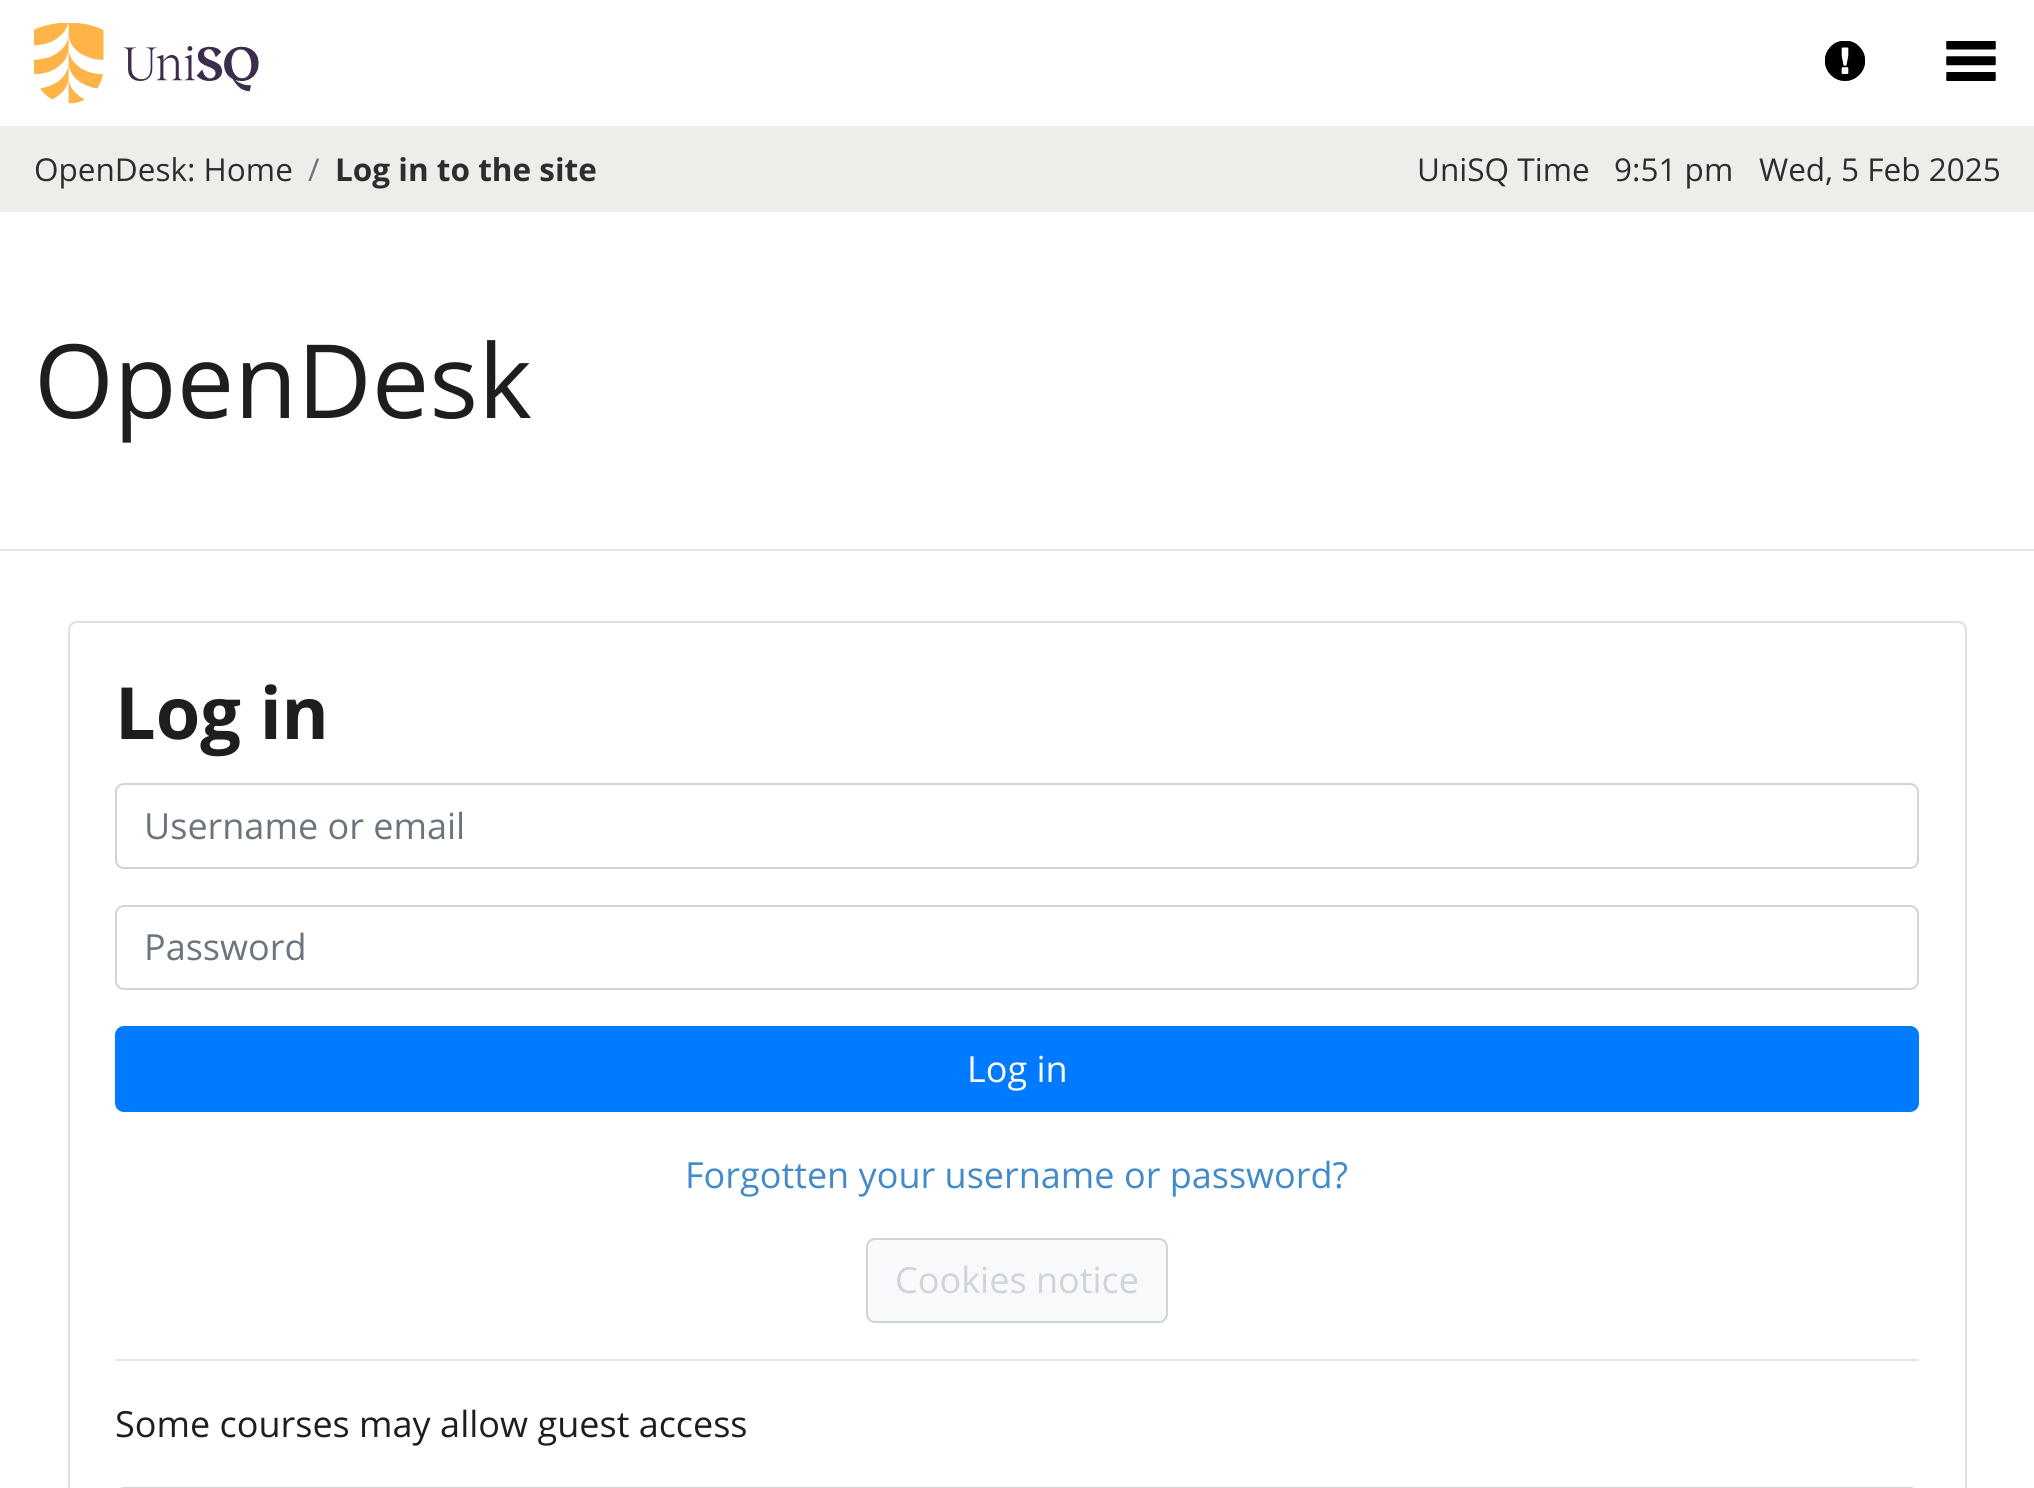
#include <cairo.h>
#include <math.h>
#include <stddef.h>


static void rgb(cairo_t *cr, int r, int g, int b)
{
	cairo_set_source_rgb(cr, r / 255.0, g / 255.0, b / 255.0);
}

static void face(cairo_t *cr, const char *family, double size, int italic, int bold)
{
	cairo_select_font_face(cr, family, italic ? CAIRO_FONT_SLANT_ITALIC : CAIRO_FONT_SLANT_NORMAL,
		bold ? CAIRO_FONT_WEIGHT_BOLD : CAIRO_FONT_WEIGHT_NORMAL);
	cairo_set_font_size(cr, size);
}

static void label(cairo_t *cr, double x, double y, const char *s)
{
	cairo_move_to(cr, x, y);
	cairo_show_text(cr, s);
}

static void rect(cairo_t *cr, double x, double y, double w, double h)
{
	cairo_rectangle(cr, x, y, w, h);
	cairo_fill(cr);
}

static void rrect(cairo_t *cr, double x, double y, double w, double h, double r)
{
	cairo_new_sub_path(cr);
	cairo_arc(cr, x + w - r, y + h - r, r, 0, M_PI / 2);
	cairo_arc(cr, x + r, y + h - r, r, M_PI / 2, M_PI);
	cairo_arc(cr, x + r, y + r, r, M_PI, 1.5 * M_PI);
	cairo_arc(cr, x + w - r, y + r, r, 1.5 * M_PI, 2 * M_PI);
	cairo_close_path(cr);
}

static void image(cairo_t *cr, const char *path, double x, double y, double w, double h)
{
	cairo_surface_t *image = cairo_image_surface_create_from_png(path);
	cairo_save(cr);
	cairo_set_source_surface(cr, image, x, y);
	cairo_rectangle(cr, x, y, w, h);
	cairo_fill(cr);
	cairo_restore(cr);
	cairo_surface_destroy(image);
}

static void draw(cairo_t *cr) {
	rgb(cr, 255, 255, 255);
	cairo_paint(cr);
	image(cr, "image0.png", 34, 23, 225, 81);
	image(cr, "image1.png", 1825, 41, 40, 40);
	image(cr, "image2.png", 1946, 41, 50, 40);
	rgb(cr, 237, 237, 234);
	rect(cr, 0, 126, 2034, 86);
	face(cr, "Open Sans", 31.5, 0, 0);
	rgb(cr, 45, 45, 45);
	label(cr, 34, 181, "OpenDesk: Home");
	rgb(cr, 108, 117, 125);
	label(cr, 308, 181, "/");
	face(cr, "Open Sans", 31.5, 0, 1);
	rgb(cr, 45, 45, 45);
	label(cr, 335, 181, "Log in to the site");
	face(cr, "Open Sans", 31.5, 0, 0);
	label(cr, 1417, 181, "UniSQ Time");
	label(cr, 1614, 181, "9:51 pm");
	label(cr, 1759, 181, "Wed, 5 Feb 2025");
	face(cr, "Open Sans", 102.5, 0, 0);
	rgb(cr, 30, 30, 30);
	label(cr, 34, 418, "OpenDesk");
	rgb(cr, 229, 229, 229);
	rect(cr, 0, 549, 2034, 2);
	rrect(cr, 69, 622, 1897, 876, 8);
	rgb(cr, 223, 223, 223);
	cairo_stroke(cr);
	face(cr, "Open Sans", 72, 0, 1);
	rgb(cr, 30, 30, 30);
	label(cr, 115, 739, "Log in");
	rrect(cr, 116, 784, 1802, 84, 8);
	rgb(cr, 206, 212, 218);
	cairo_stroke(cr);
	face(cr, "Open Sans", 36, 0, 0);
	rgb(cr, 108, 117, 125);
	label(cr, 144, 839, "Username or email");
	rrect(cr, 116, 906, 1802, 83, 8);
	rgb(cr, 206, 212, 218);
	cairo_stroke(cr);
	rgb(cr, 108, 117, 125);
	label(cr, 144, 960, "Password");
	rgb(cr, 0, 123, 255);
	rrect(cr, 116, 1027, 1802, 84, 8);
	cairo_fill_preserve(cr);
	cairo_stroke(cr);
	rgb(cr, 255, 255, 255);
	label(cr, 967, 1082, "Log in");
	rgb(cr, 66, 139, 202);
	label(cr, 685, 1188, "Forgotten your username or password?");
	rgb(cr, 248, 249, 250);
	rrect(cr, 867, 1239, 300, 83, 8);
	cairo_fill_preserve(cr);
	rgb(cr, 206, 212, 218);
	cairo_stroke(cr);
	label(cr, 895, 1293, "Cookies notice");
	rgb(cr, 230, 230, 230);
	rect(cr, 115, 1359, 1804, 2);
	rgb(cr, 30, 30, 30);
	label(cr, 115, 1437, "Some courses may allow guest access");
	rrect(cr, 116, 1488, 1802, 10, 8);
	rgb(cr, 206, 212, 218);
	cairo_stroke(cr);
}

int main(void) {
	cairo_surface_t *surface = cairo_image_surface_create(CAIRO_FORMAT_RGB24, 2034, 1488);
	cairo_t *cr = cairo_create(surface);
	cairo_font_options_t *options = cairo_font_options_create();
	cairo_font_options_set_hint_metrics(options, CAIRO_HINT_METRICS_OFF);
	cairo_font_options_set_hint_style(options, CAIRO_HINT_STYLE_NONE);
	cairo_set_font_options(cr, options);
	cairo_set_miter_limit(cr, 4);
	draw(cr);
	cairo_surface_write_to_png(surface, "render.png");
	cairo_font_options_destroy(options);
	cairo_destroy(cr);
	cairo_surface_destroy(surface);
	return 0;
}
